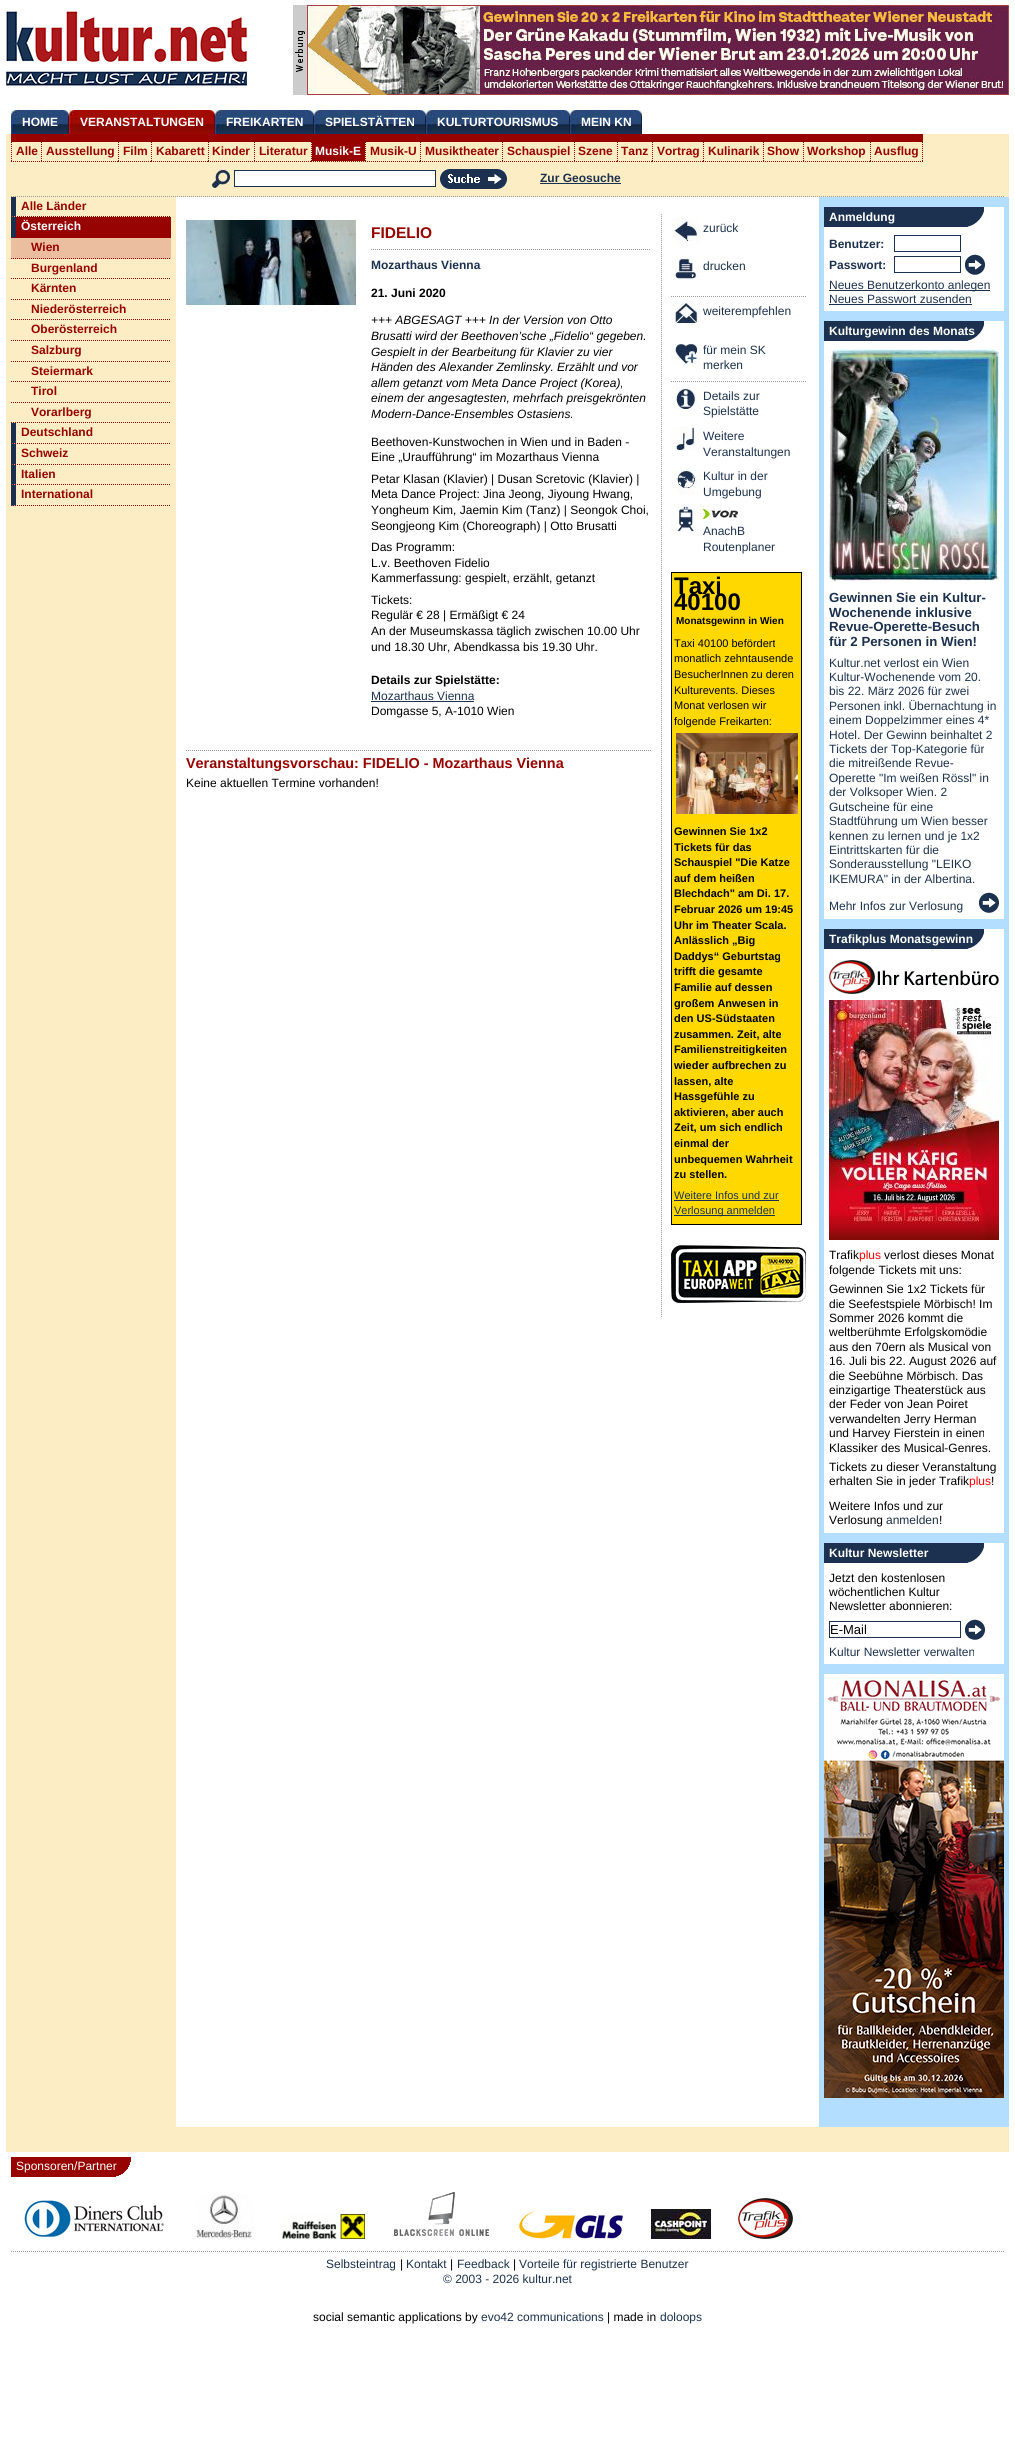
#include <cairo.h>
#include <math.h>
#include <stddef.h>


static void rgb(cairo_t *cr, int r, int g, int b)
{
	cairo_set_source_rgb(cr, r / 255.0, g / 255.0, b / 255.0);
}

static void face(cairo_t *cr, const char *family, double size, int italic, int bold)
{
	cairo_select_font_face(cr, family, italic ? CAIRO_FONT_SLANT_ITALIC : CAIRO_FONT_SLANT_NORMAL,
		bold ? CAIRO_FONT_WEIGHT_BOLD : CAIRO_FONT_WEIGHT_NORMAL);
	cairo_set_font_size(cr, size);
}

static void label(cairo_t *cr, double x, double y, const char *s)
{
	cairo_move_to(cr, x, y);
	cairo_show_text(cr, s);
}

static void rect(cairo_t *cr, double x, double y, double w, double h)
{
	cairo_rectangle(cr, x, y, w, h);
	cairo_fill(cr);
}

static void image(cairo_t *cr, const char *path, double x, double y, double w, double h)
{
	cairo_surface_t *image = cairo_image_surface_create_from_png(path);
	cairo_save(cr);
	cairo_set_source_surface(cr, image, x, y);
	cairo_rectangle(cr, x, y, w, h);
	cairo_fill(cr);
	cairo_restore(cr);
	cairo_surface_destroy(image);
}

static void draw(cairo_t *cr) {
	rgb(cr, 255, 255, 255);
	cairo_paint(cr);
	image(cr, "image0.png", 6, 11, 241, 75);
	image(cr, "image1.png", 293, 5, 14, 90);
	image(cr, "image2.png", 307, 5, 702, 90);
	image(cr, "image3.png", 11, 110, 38, 24);
	image(cr, "image4.png", 49, 110, 20, 24);
	face(cr, "Liberation Sans", 12, 0, 1);
	rgb(cr, 255, 255, 255);
	label(cr, 22, 126, "HOME");
	image(cr, "image5.png", 69, 110, 126, 24);
	image(cr, "image6.png", 195, 110, 20, 24);
	label(cr, 80, 126, "VERANSTALTUNGEN");
	image(cr, "image7.png", 215, 110, 79, 24);
	image(cr, "image4.png", 294, 110, 20, 24);
	label(cr, 226, 126, "FREIKARTEN");
	image(cr, "image8.png", 314, 110, 92, 24);
	image(cr, "image4.png", 406, 110, 20, 24);
	label(cr, 325, 126, "SPIELSTÄTTEN");
	image(cr, "image9.png", 426, 110, 124, 24);
	image(cr, "image4.png", 550, 110, 20, 24);
	label(cr, 437, 126, "KULTURTOURISMUS");
	image(cr, "image10.png", 570, 110, 52, 24);
	image(cr, "image4.png", 622, 110, 20, 24);
	label(cr, 581, 126, "MEIN KN");
	rgb(cr, 252, 237, 196);
	rect(cr, 6, 134, 1003, 63);
	rgb(cr, 150, 3, 0);
	rect(cr, 11, 134, 912, 8);
	cairo_new_path(cr);
	cairo_move_to(cr, 11, 161.5);
	cairo_line_to(cr, 41, 161.5);
	cairo_move_to(cr, 11.5, 134);
	cairo_line_to(cr, 11.5, 162);
	cairo_set_line_width(cr, 1);
	cairo_set_dash(cr, (double[]){1, 1}, 2, 0);
	cairo_stroke(cr);
	label(cr, 16, 155, "Alle");
	cairo_new_path(cr);
	cairo_move_to(cr, 41, 161.5);
	cairo_line_to(cr, 118, 161.5);
	cairo_stroke(cr);
	cairo_new_path(cr);
	cairo_move_to(cr, 41.5, 134);
	cairo_line_to(cr, 41.5, 162);
	cairo_stroke(cr);
	label(cr, 46, 155, "Ausstellung");
	cairo_new_path(cr);
	cairo_move_to(cr, 118, 161.5);
	cairo_line_to(cr, 151, 161.5);
	cairo_move_to(cr, 118.5, 134);
	cairo_line_to(cr, 118.5, 162);
	cairo_stroke(cr);
	label(cr, 123, 155, "Film");
	cairo_new_path(cr);
	cairo_move_to(cr, 151, 161.5);
	cairo_line_to(cr, 208, 161.5);
	cairo_move_to(cr, 151.5, 134);
	cairo_line_to(cr, 151.5, 162);
	cairo_stroke(cr);
	label(cr, 156, 155, "Kabarett");
	cairo_new_path(cr);
	cairo_move_to(cr, 208, 161.5);
	cairo_line_to(cr, 254, 161.5);
	cairo_move_to(cr, 208.5, 134);
	cairo_line_to(cr, 208.5, 162);
	cairo_stroke(cr);
	label(cr, 212, 155, "Kinder");
	cairo_new_path(cr);
	cairo_move_to(cr, 254, 161.5);
	cairo_line_to(cr, 311, 161.5);
	cairo_move_to(cr, 254.5, 134);
	cairo_line_to(cr, 254.5, 162);
	cairo_stroke(cr);
	label(cr, 259, 155, "Literatur");
	cairo_new_path(cr);
	cairo_move_to(cr, 311, 161.5);
	cairo_line_to(cr, 365, 161.5);
	cairo_move_to(cr, 311.5, 134);
	cairo_line_to(cr, 311.5, 162);
	cairo_stroke(cr);
	rect(cr, 312, 142, 53, 19);
	rgb(cr, 255, 255, 255);
	label(cr, 315, 155, "Musik-E");
	cairo_new_path(cr);
	cairo_move_to(cr, 365, 161.5);
	cairo_line_to(cr, 420, 161.5);
	cairo_move_to(cr, 365.5, 134);
	cairo_line_to(cr, 365.5, 162);
	rgb(cr, 150, 3, 0);
	cairo_stroke(cr);
	label(cr, 370, 155, "Musik-U");
	cairo_new_path(cr);
	cairo_move_to(cr, 420, 161.5);
	cairo_line_to(cr, 502, 161.5);
	cairo_stroke(cr);
	cairo_new_path(cr);
	cairo_move_to(cr, 420.5, 134);
	cairo_line_to(cr, 420.5, 162);
	cairo_stroke(cr);
	label(cr, 425, 155, "Musiktheater");
	cairo_new_path(cr);
	cairo_move_to(cr, 502, 161.5);
	cairo_line_to(cr, 574, 161.5);
	cairo_stroke(cr);
	cairo_new_path(cr);
	cairo_move_to(cr, 502.5, 134);
	cairo_line_to(cr, 502.5, 162);
	cairo_stroke(cr);
	label(cr, 507, 155, "Schauspiel");
	cairo_new_path(cr);
	cairo_move_to(cr, 574, 161.5);
	cairo_line_to(cr, 617, 161.5);
	cairo_move_to(cr, 574.5, 134);
	cairo_line_to(cr, 574.5, 162);
	cairo_stroke(cr);
	label(cr, 578, 155, "Szene");
	cairo_new_path(cr);
	cairo_move_to(cr, 617, 161.5);
	cairo_line_to(cr, 652, 161.5);
	cairo_move_to(cr, 617.5, 134);
	cairo_line_to(cr, 617.5, 162);
	cairo_stroke(cr);
	label(cr, 621, 155, "Tanz");
	cairo_new_path(cr);
	cairo_move_to(cr, 652, 161.5);
	cairo_line_to(cr, 703, 161.5);
	cairo_move_to(cr, 652.5, 134);
	cairo_line_to(cr, 652.5, 162);
	cairo_stroke(cr);
	label(cr, 657, 155, "Vortrag");
	cairo_new_path(cr);
	cairo_move_to(cr, 703, 161.5);
	cairo_line_to(cr, 763, 161.5);
	cairo_move_to(cr, 703.5, 134);
	cairo_line_to(cr, 703.5, 162);
	cairo_stroke(cr);
	label(cr, 708, 155, "Kulinarik");
	cairo_new_path(cr);
	cairo_move_to(cr, 763, 161.5);
	cairo_line_to(cr, 803, 161.5);
	cairo_move_to(cr, 763.5, 134);
	cairo_line_to(cr, 763.5, 162);
	cairo_stroke(cr);
	label(cr, 767, 155, "Show");
	cairo_new_path(cr);
	cairo_move_to(cr, 803, 161.5);
	cairo_line_to(cr, 870, 161.5);
	cairo_stroke(cr);
	cairo_new_path(cr);
	cairo_move_to(cr, 803.5, 134);
	cairo_line_to(cr, 803.5, 162);
	cairo_stroke(cr);
	label(cr, 807, 155, "Workshop");
	cairo_new_path(cr);
	cairo_move_to(cr, 922.5, 134);
	cairo_line_to(cr, 922.5, 162);
	cairo_move_to(cr, 870, 161.5);
	cairo_line_to(cr, 923, 161.5);
	cairo_move_to(cr, 870.5, 134);
	cairo_line_to(cr, 870.5, 162);
	cairo_stroke(cr);
	label(cr, 874, 155, "Ausflug");
	cairo_new_path(cr);
	cairo_move_to(cr, 11, 196.5);
	cairo_line_to(cr, 1004, 196.5);
	rgb(cr, 156, 156, 156);
	cairo_stroke(cr);
	image(cr, "image11.png", 211, 169, 20, 19);
	rgb(cr, 255, 255, 255);
	cairo_rectangle(cr, 234.5, 170.5, 201, 16);
	cairo_fill_preserve(cr);
	rgb(cr, 28, 49, 78);
	cairo_set_dash(cr, NULL, 0, 0);
	cairo_stroke(cr);
	image(cr, "image12.png", 440, 169, 67, 20);
	label(cr, 540, 182, "Zur Geosuche");
	rgb(cr, 27, 49, 79);
	rect(cr, 540, 183, 81, 1);
	image(cr, "image13.png", 6, 197, 1003, 1915);
	cairo_new_path(cr);
	cairo_move_to(cr, 11, 216.5);
	cairo_line_to(cr, 171, 216.5);
	rgb(cr, 151, 3, 3);
	cairo_set_dash(cr, (double[]){1, 1}, 2, 0);
	cairo_stroke(cr);
	rgb(cr, 27, 47, 80);
	cairo_new_path(cr);
	cairo_move_to(cr, 11, 217);
	cairo_line_to(cr, 11, 197);
	cairo_line_to(cr, 16, 197);
	cairo_line_to(cr, 16, 216);
	cairo_close_path(cr);
	cairo_fill(cr);
	rgb(cr, 150, 3, 0);
	label(cr, 21, 210, "Alle Länder");
	rgb(cr, 151, 3, 3);
	rect(cr, 11, 217, 160, 21);
	rgb(cr, 27, 47, 80);
	cairo_new_path(cr);
	cairo_move_to(cr, 11, 238);
	cairo_line_to(cr, 11, 217);
	cairo_line_to(cr, 16, 217);
	cairo_line_to(cr, 16, 237);
	cairo_close_path(cr);
	cairo_fill(cr);
	rgb(cr, 255, 255, 255);
	label(cr, 21, 230, "Österreich");
	rgb(cr, 235, 190, 159);
	rect(cr, 11, 238, 160, 21);
	cairo_new_path(cr);
	cairo_move_to(cr, 11, 258.5);
	cairo_line_to(cr, 171, 258.5);
	rgb(cr, 151, 3, 3);
	cairo_stroke(cr);
	rgb(cr, 150, 3, 0);
	label(cr, 31, 251, "Wien");
	cairo_new_path(cr);
	cairo_move_to(cr, 11, 278.5);
	cairo_line_to(cr, 171, 278.5);
	rgb(cr, 151, 3, 3);
	cairo_stroke(cr);
	rgb(cr, 150, 3, 0);
	label(cr, 31, 272, "Burgenland");
	cairo_new_path(cr);
	cairo_move_to(cr, 11, 299.5);
	cairo_line_to(cr, 171, 299.5);
	rgb(cr, 151, 3, 3);
	cairo_stroke(cr);
	rgb(cr, 150, 3, 0);
	label(cr, 31, 292, "Kärnten");
	cairo_new_path(cr);
	cairo_move_to(cr, 11, 319.5);
	cairo_line_to(cr, 171, 319.5);
	rgb(cr, 151, 3, 3);
	cairo_stroke(cr);
	rgb(cr, 150, 3, 0);
	label(cr, 31, 313, "Niederösterreich");
	cairo_new_path(cr);
	cairo_move_to(cr, 11, 340.5);
	cairo_line_to(cr, 171, 340.5);
	rgb(cr, 151, 3, 3);
	cairo_stroke(cr);
	rgb(cr, 150, 3, 0);
	label(cr, 31, 333, "Oberösterreich");
	cairo_new_path(cr);
	cairo_move_to(cr, 11, 361.5);
	cairo_line_to(cr, 171, 361.5);
	rgb(cr, 151, 3, 3);
	cairo_stroke(cr);
	rgb(cr, 150, 3, 0);
	label(cr, 31, 354, "Salzburg");
	cairo_new_path(cr);
	cairo_move_to(cr, 11, 381.5);
	cairo_line_to(cr, 171, 381.5);
	rgb(cr, 151, 3, 3);
	cairo_stroke(cr);
	rgb(cr, 150, 3, 0);
	label(cr, 31, 375, "Steiermark");
	cairo_new_path(cr);
	cairo_move_to(cr, 11, 402.5);
	cairo_line_to(cr, 171, 402.5);
	rgb(cr, 151, 3, 3);
	cairo_stroke(cr);
	rgb(cr, 150, 3, 0);
	label(cr, 31, 395, "Tirol");
	cairo_new_path(cr);
	cairo_move_to(cr, 11, 422.5);
	cairo_line_to(cr, 171, 422.5);
	rgb(cr, 151, 3, 3);
	cairo_stroke(cr);
	rgb(cr, 150, 3, 0);
	label(cr, 31, 416, "Vorarlberg");
	cairo_new_path(cr);
	cairo_move_to(cr, 11, 443.5);
	cairo_line_to(cr, 171, 443.5);
	rgb(cr, 151, 3, 3);
	cairo_stroke(cr);
	rgb(cr, 27, 47, 80);
	cairo_new_path(cr);
	cairo_move_to(cr, 11, 444);
	cairo_line_to(cr, 11, 423);
	cairo_line_to(cr, 16, 423);
	cairo_line_to(cr, 16, 443);
	cairo_close_path(cr);
	cairo_fill(cr);
	rgb(cr, 150, 3, 0);
	label(cr, 21, 436, "Deutschland");
	cairo_new_path(cr);
	cairo_move_to(cr, 11, 464.5);
	cairo_line_to(cr, 171, 464.5);
	rgb(cr, 151, 3, 3);
	cairo_stroke(cr);
	rgb(cr, 27, 47, 80);
	cairo_new_path(cr);
	cairo_move_to(cr, 11, 465);
	cairo_line_to(cr, 11, 444);
	cairo_line_to(cr, 16, 444);
	cairo_line_to(cr, 16, 464);
	cairo_close_path(cr);
	cairo_fill(cr);
	rgb(cr, 150, 3, 0);
	label(cr, 21, 457, "Schweiz");
	cairo_new_path(cr);
	cairo_move_to(cr, 11, 484.5);
	cairo_line_to(cr, 171, 484.5);
	rgb(cr, 151, 3, 3);
	cairo_stroke(cr);
	rgb(cr, 27, 47, 80);
	cairo_new_path(cr);
	cairo_move_to(cr, 11, 485);
	cairo_line_to(cr, 11, 465);
	cairo_line_to(cr, 16, 465);
	cairo_line_to(cr, 16, 484);
	cairo_close_path(cr);
	cairo_fill(cr);
	rgb(cr, 150, 3, 0);
	label(cr, 21, 478, "Italien");
	cairo_new_path(cr);
	cairo_move_to(cr, 11, 505.5);
	cairo_line_to(cr, 171, 505.5);
	rgb(cr, 151, 3, 3);
	cairo_stroke(cr);
	rgb(cr, 27, 47, 80);
	cairo_new_path(cr);
	cairo_move_to(cr, 11, 506);
	cairo_line_to(cr, 11, 485);
	cairo_line_to(cr, 16, 485);
	cairo_line_to(cr, 16, 505);
	cairo_close_path(cr);
	cairo_fill(cr);
	rgb(cr, 150, 3, 0);
	label(cr, 21, 498, "International");
	image(cr, "image14.png", 661, 214, 1, 1104);
	image(cr, "image15.png", 186, 220, 170, 85);
	cairo_new_path(cr);
	cairo_move_to(cr, 371, 249.5);
	cairo_line_to(cr, 651, 249.5);
	rgb(cr, 156, 156, 156);
	cairo_stroke(cr);
	face(cr, "Liberation Sans", 15.5, 0, 1);
	rgb(cr, 150, 3, 0);
	label(cr, 371, 238, "FIDELIO");
	face(cr, "Liberation Sans", 12, 0, 1);
	rgb(cr, 28, 49, 78);
	label(cr, 371, 269, "Mozarthaus Vienna");
	rgb(cr, 0, 0, 0);
	label(cr, 371, 297, "21. Juni 2020");
	face(cr, "Liberation Sans", 12, 1, 0);
	label(cr, 371, 324, "+++ ABGESAGT +++ In der Version von Otto");
	label(cr, 371, 340, "Brusatti wird der Beethoven’sche „Fidelio“ gegeben.");
	label(cr, 371, 356, "Gespielt in der Bearbeitung für Klavier zu vier");
	label(cr, 371, 371, "Händen des Alexander Zemlinsky. Erzählt und vor");
	label(cr, 371, 387, "allem getanzt vom Meta Dance Project (Korea),");
	label(cr, 371, 402, "einem der angesagtesten, mehrfach preisgekrönten");
	label(cr, 371, 418, "Modern-Dance-Ensembles Ostasiens.");
	face(cr, "Liberation Sans", 12, 0, 0);
	label(cr, 371, 446, "Beethoven-Kunstwochen in Wien und in Baden -");
	label(cr, 371, 461, "Eine „Uraufführung“ im Mozarthaus Vienna");
	label(cr, 371, 483, "Petar Klasan (Klavier) | Dusan Scretovic (Klavier) |");
	label(cr, 371, 498, "Meta Dance Project: Jina Jeong, Jiyoung Hwang,");
	label(cr, 371, 514, "Yongheum Kim, Jaemin Kim (Tanz) | Seongok Choi,");
	label(cr, 371, 530, "Seongjeong Kim (Choreograph) | Otto Brusatti");
	label(cr, 371, 551, "Das Programm:");
	label(cr, 371, 567, "L.v. Beethoven Fidelio");
	label(cr, 371, 582, "Kammerfassung: gespielt, erzählt, getanzt");
	label(cr, 371, 604, "Tickets:");
	label(cr, 371, 619, "Regulär € 28 | Ermäßigt € 24");
	label(cr, 371, 635, "An der Museumskassa täglich zwischen 10.00 Uhr");
	label(cr, 371, 651, "und 18.30 Uhr, Abendkassa bis 19.30 Uhr.");
	face(cr, "Liberation Sans", 12, 0, 1);
	label(cr, 371, 684, "Details zur Spielstätte:");
	face(cr, "Liberation Sans", 12, 0, 0);
	rgb(cr, 28, 49, 78);
	label(cr, 371, 700, "Mozarthaus Vienna");
	rect(cr, 371, 701, 103, 1);
	rgb(cr, 0, 0, 0);
	label(cr, 371, 715, "Domgasse 5, A-1010 Wien");
	cairo_new_path(cr);
	cairo_move_to(cr, 186, 750.5);
	cairo_line_to(cr, 651, 750.5);
	rgb(cr, 156, 156, 156);
	cairo_stroke(cr);
	face(cr, "Liberation Sans", 14.4, 0, 1);
	rgb(cr, 150, 3, 0);
	label(cr, 186, 768, "Veranstaltungsvorschau: FIDELIO - Mozarthaus Vienna");
	face(cr, "Liberation Sans", 12, 0, 0);
	rgb(cr, 0, 0, 0);
	label(cr, 186, 787, "Keine aktuellen Termine vorhanden!");
	image(cr, "image16.png", 671, 218, 29, 26);
	rgb(cr, 28, 49, 78);
	label(cr, 703, 232, "zurück");
	image(cr, "image17.png", 671, 257, 30, 23);
	label(cr, 703, 270, "drucken");
	cairo_new_path(cr);
	cairo_move_to(cr, 671, 296.5);
	cairo_line_to(cr, 807, 296.5);
	rgb(cr, 156, 156, 156);
	cairo_stroke(cr);
	image(cr, "image18.png", 671, 301, 30, 23);
	rgb(cr, 28, 49, 78);
	label(cr, 703, 315, "weiterempfehlen");
	image(cr, "image19.png", 671, 344, 30, 22);
	label(cr, 703, 354, "für mein SK");
	label(cr, 703, 369, "merken");
	cairo_new_path(cr);
	cairo_move_to(cr, 671, 381.5);
	cairo_line_to(cr, 807, 381.5);
	rgb(cr, 156, 156, 156);
	cairo_stroke(cr);
	image(cr, "image20.png", 671, 387, 30, 22);
	rgb(cr, 28, 49, 78);
	label(cr, 703, 400, "Details zur");
	label(cr, 703, 415, "Spielstätte");
	image(cr, "image21.png", 671, 427, 24, 24);
	label(cr, 703, 440, "Weitere");
	label(cr, 703, 456, "Veranstaltungen");
	image(cr, "image22.png", 671, 470, 30, 24);
	label(cr, 703, 480, "Kultur in der");
	label(cr, 703, 496, "Umgebung");
	image(cr, "image23.png", 671, 504, 24, 30);
	image(cr, "image24.png", 703, 509, 35, 10);
	label(cr, 703, 535, "AnachB");
	label(cr, 703, 551, "Routenplaner");
	rgb(cr, 255, 216, 0);
	cairo_rectangle(cr, 671.5, 572.5, 130, 652);
	cairo_fill_preserve(cr);
	rgb(cr, 0, 0, 0);
	cairo_set_dash(cr, NULL, 0, 0);
	cairo_stroke(cr);
	face(cr, "Liberation Sans", 24, 0, 1);
	label(cr, 674, 594, "Taxi");
	label(cr, 674, 610, "40100");
	face(cr, "Liberation Sans", 10, 0, 1);
	label(cr, 676, 624, "Monatsgewinn in Wien");
	face(cr, "Liberation Sans", 11, 0, 0);
	label(cr, 674, 647, "Taxi 40100 befördert");
	label(cr, 674, 662, "monatlich zehntausende");
	label(cr, 674, 678, "BesucherInnen zu deren");
	label(cr, 674, 694, "Kulturevents. Dieses");
	label(cr, 674, 709, "Monat verlosen wir");
	label(cr, 674, 725, "folgende Freikarten:");
	image(cr, "image25.png", 676, 733, 122, 81);
	face(cr, "Liberation Sans", 11, 0, 1);
	label(cr, 674, 835, "Gewinnen Sie 1x2");
	label(cr, 674, 851, "Tickets für das");
	label(cr, 674, 866, "Schauspiel \"Die Katze");
	label(cr, 674, 882, "auf dem heißen");
	label(cr, 674, 897, "Blechdach\" am Di. 17.");
	label(cr, 674, 913, "Februar 2026 um 19:45");
	label(cr, 674, 929, "Uhr im Theater Scala.");
	label(cr, 674, 944, "Anlässlich „Big");
	label(cr, 674, 960, "Daddys“ Geburtstag");
	label(cr, 674, 975, "trifft die gesamte");
	label(cr, 674, 991, "Familie auf dessen");
	label(cr, 674, 1007, "großem Anwesen in");
	label(cr, 674, 1022, "den US-Südstaaten");
	label(cr, 674, 1038, "zusammen. Zeit, alte");
	label(cr, 674, 1053, "Familienstreitigkeiten");
	label(cr, 674, 1069, "wieder aufbrechen zu");
	label(cr, 674, 1085, "lassen, alte");
	label(cr, 674, 1100, "Hassgefühle zu");
	label(cr, 674, 1116, "aktivieren, aber auch");
	label(cr, 674, 1131, "Zeit, um sich endlich");
	label(cr, 674, 1147, "einmal der");
	label(cr, 674, 1163, "unbequemen Wahrheit");
	label(cr, 674, 1178, "zu stellen.");
	face(cr, "Liberation Sans", 11, 0, 0);
	rgb(cr, 28, 49, 78);
	label(cr, 674, 1199, "Weitere Infos und zur");
	rect(cr, 674, 1200, 105, 1);
	rect(cr, 674, 1215, 101, 1);
	label(cr, 674, 1214, "Verlosung anmelden");
	image(cr, "image26.png", 671, 1245, 135, 58);
	rgb(cr, 255, 255, 255);
	rect(cr, 824, 207, 180, 104);
	image(cr, "image27.png", 824, 207, 160, 20);
	face(cr, "Liberation Sans", 12, 0, 1);
	label(cr, 829, 221, "Anmeldung");
	rgb(cr, 28, 49, 78);
	label(cr, 829, 248, "Benutzer:");
	cairo_rectangle(cr, 894.5, 235.5, 66, 16);
	cairo_stroke(cr);
	label(cr, 829, 269, "Passwort:");
	cairo_rectangle(cr, 894.5, 256.5, 66, 16);
	cairo_stroke(cr);
	image(cr, "image28.png", 965, 254, 20, 21);
	rect(cr, 829, 290, 161, 1);
	face(cr, "Liberation Sans", 12, 0, 0);
	label(cr, 829, 289, "Neues Benutzerkonto anlegen");
	label(cr, 829, 303, "Neues Passwort zusenden");
	rect(cr, 829, 304, 143, 1);
	rgb(cr, 255, 255, 255);
	rect(cr, 824, 321, 180, 598);
	image(cr, "image27.png", 824, 321, 160, 20);
	face(cr, "Liberation Sans", 12, 0, 1);
	label(cr, 829, 335, "Kulturgewinn des Monats");
	image(cr, "image29.png", 829, 349, 170, 232);
	face(cr, "Liberation Sans", 13.25, 0, 1);
	rgb(cr, 28, 49, 78);
	label(cr, 829, 602, "Gewinnen Sie ein Kultur-");
	label(cr, 829, 617, "Wochenende inklusive");
	label(cr, 829, 631, "Revue-Operette-Besuch");
	label(cr, 829, 646, "für 2 Personen in Wien!");
	face(cr, "Liberation Sans", 12, 0, 0);
	label(cr, 829, 667, "Kultur.net verlost ein Wien");
	label(cr, 829, 681, "Kultur-Wochenende vom 20.");
	label(cr, 829, 695, "bis 22. März 2026 für zwei");
	label(cr, 829, 710, "Personen inkl. Übernachtung in");
	label(cr, 829, 724, "einem Doppelzimmer eines 4*");
	label(cr, 829, 739, "Hotel. Der Gewinn beinhaltet 2");
	label(cr, 829, 753, "Tickets der Top-Kategorie für");
	label(cr, 829, 767, "die mitreißende Revue-");
	label(cr, 829, 782, "Operette \"Im weißen Rössl\" in");
	label(cr, 829, 796, "der Volksoper Wien. 2");
	label(cr, 829, 811, "Gutscheine für eine");
	label(cr, 829, 825, "Stadtführung um Wien besser");
	label(cr, 829, 840, "kennen zu lernen und je 1x2");
	label(cr, 829, 854, "Eintrittskarten für die");
	label(cr, 829, 868, "Sonderausstellung \"LEIKO");
	label(cr, 829, 883, "IKEMURA\" in der Albertina.");
	label(cr, 829, 910, "Mehr Infos zur Verlosung");
	image(cr, "image28.png", 979, 892, 20, 21);
	rgb(cr, 255, 255, 255);
	rect(cr, 824, 929, 180, 604);
	image(cr, "image27.png", 824, 929, 160, 20);
	face(cr, "Liberation Sans", 12, 0, 1);
	label(cr, 829, 943, "Trafikplus Monatsgewinn");
	image(cr, "image30.png", 829, 960, 170, 34);
	image(cr, "image31.png", 829, 1000, 170, 240);
	face(cr, "Liberation Sans", 12, 0, 0);
	rgb(cr, 0, 0, 0);
	label(cr, 829, 1259, "Trafik");
	rgb(cr, 255, 0, 0);
	label(cr, 859, 1259, "plus");
	rgb(cr, 0, 0, 0);
	label(cr, 884, 1259, "verlost dieses Monat");
	label(cr, 829, 1274, "folgende Tickets mit uns:");
	label(cr, 829, 1293, "Gewinnen Sie 1x2 Tickets für");
	label(cr, 829, 1308, "die Seefestspiele Mörbisch! Im");
	label(cr, 829, 1322, "Sommer 2026 kommt die");
	label(cr, 829, 1336, "weltberühmte Erfolgskomödie");
	label(cr, 829, 1351, "aus den 70ern als Musical von");
	label(cr, 829, 1365, "16. Juli bis 22. August 2026 auf");
	label(cr, 829, 1380, "die Seebühne Mörbisch. Das");
	label(cr, 829, 1394, "einzigartige Theaterstück aus");
	label(cr, 829, 1408, "der Feder von Jean Poiret");
	label(cr, 829, 1423, "verwandelten Jerry Herman");
	label(cr, 829, 1437, "und Harvey Fierstein in einen");
	label(cr, 829, 1452, "Klassiker des Musical-Genres.");
	label(cr, 829, 1471, "Tickets zu dieser Veranstaltung");
	label(cr, 829, 1485, "erhalten Sie in jeder Trafik");
	rgb(cr, 255, 0, 0);
	label(cr, 969, 1485, "plus");
	rgb(cr, 0, 0, 0);
	label(cr, 991, 1485, "!");
	label(cr, 829, 1510, "Weitere Infos und zur");
	label(cr, 829, 1524, "Verlosung");
	rgb(cr, 28, 49, 78);
	label(cr, 886, 1524, "anmelden");
	rgb(cr, 0, 0, 0);
	label(cr, 939, 1524, "!");
	rgb(cr, 255, 255, 255);
	rect(cr, 824, 1543, 180, 121);
	image(cr, "image27.png", 824, 1543, 160, 20);
	face(cr, "Liberation Sans", 12, 0, 1);
	label(cr, 829, 1557, "Kultur Newsletter");
	face(cr, "Liberation Sans", 12, 0, 0);
	rgb(cr, 0, 0, 0);
	label(cr, 829, 1582, "Jetzt den kostenlosen");
	label(cr, 829, 1596, "wöchentlichen Kultur");
	label(cr, 829, 1610, "Newsletter abonnieren:");
	cairo_rectangle(cr, 829.5, 1621.5, 131, 16);
	rgb(cr, 28, 49, 78);
	cairo_stroke(cr);
	face(cr, "Liberation Sans", 13, 0, 0);
	rgb(cr, 0, 0, 0);
	label(cr, 830, 1634, "E-Mail");
	image(cr, "image28.png", 965, 1619, 20, 21);
	face(cr, "Liberation Sans", 12, 0, 0);
	rgb(cr, 28, 49, 78);
	label(cr, 829, 1656, "Kultur Newsletter verwalten");
	image(cr, "image32.png", 824, 1674, 180, 424);
	image(cr, "image33.png", 6, 2112, 1003, 15);
	rgb(cr, 252, 237, 196);
	rect(cr, 6, 2127, 1003, 25);
	image(cr, "image34.png", 11, 2157, 120, 20);
	rgb(cr, 255, 255, 255);
	label(cr, 16, 2170, "Sponsoren/Partner");
	image(cr, "image35.png", 24, 2200, 140, 37);
	image(cr, "image36.png", 194, 2194, 60, 45);
	image(cr, "image37.png", 282, 2214, 83, 25);
	image(cr, "image38.png", 394, 2192, 95, 44);
	image(cr, "image39.png", 519, 2210, 104, 29);
	image(cr, "image40.png", 651, 2209, 60, 30);
	image(cr, "image41.png", 738, 2198, 55, 41);
	cairo_new_path(cr);
	cairo_move_to(cr, 11, 2251.5);
	cairo_line_to(cr, 1004, 2251.5);
	rgb(cr, 156, 156, 156);
	cairo_set_dash(cr, (double[]){1, 1}, 2, 0);
	cairo_stroke(cr);
	rgb(cr, 28, 49, 78);
	label(cr, 326, 2268, "Selbsteintrag");
	rgb(cr, 0, 0, 0);
	label(cr, 400, 2268, "|");
	rgb(cr, 28, 49, 78);
	label(cr, 406, 2268, "Kontakt");
	rgb(cr, 0, 0, 0);
	label(cr, 450, 2268, "|");
	rgb(cr, 28, 49, 78);
	label(cr, 457, 2268, "Feedback");
	rgb(cr, 0, 0, 0);
	label(cr, 513, 2268, "|");
	rgb(cr, 28, 49, 78);
	label(cr, 519, 2268, "Vorteile für registrierte Benutzer");
	label(cr, 443, 2283, "© 2003 - 2026 kultur.net");
	rgb(cr, 0, 0, 0);
	label(cr, 313, 2321, "social semantic applications by");
	rgb(cr, 28, 49, 78);
	label(cr, 481, 2321, "evo42 communications");
	rgb(cr, 0, 0, 0);
	label(cr, 607, 2321, "| made in");
	rgb(cr, 28, 49, 78);
	label(cr, 660, 2321, "doloops");
}

int main(void) {
	cairo_surface_t *surface = cairo_image_surface_create(CAIRO_FORMAT_RGB24, 1015, 2442);
	cairo_t *cr = cairo_create(surface);
	cairo_font_options_t *options = cairo_font_options_create();
	cairo_font_options_set_hint_metrics(options, CAIRO_HINT_METRICS_OFF);
	cairo_font_options_set_hint_style(options, CAIRO_HINT_STYLE_NONE);
	cairo_set_font_options(cr, options);
	cairo_set_miter_limit(cr, 4);
	draw(cr);
	cairo_surface_write_to_png(surface, "render.png");
	cairo_font_options_destroy(options);
	cairo_destroy(cr);
	cairo_surface_destroy(surface);
	return 0;
}
